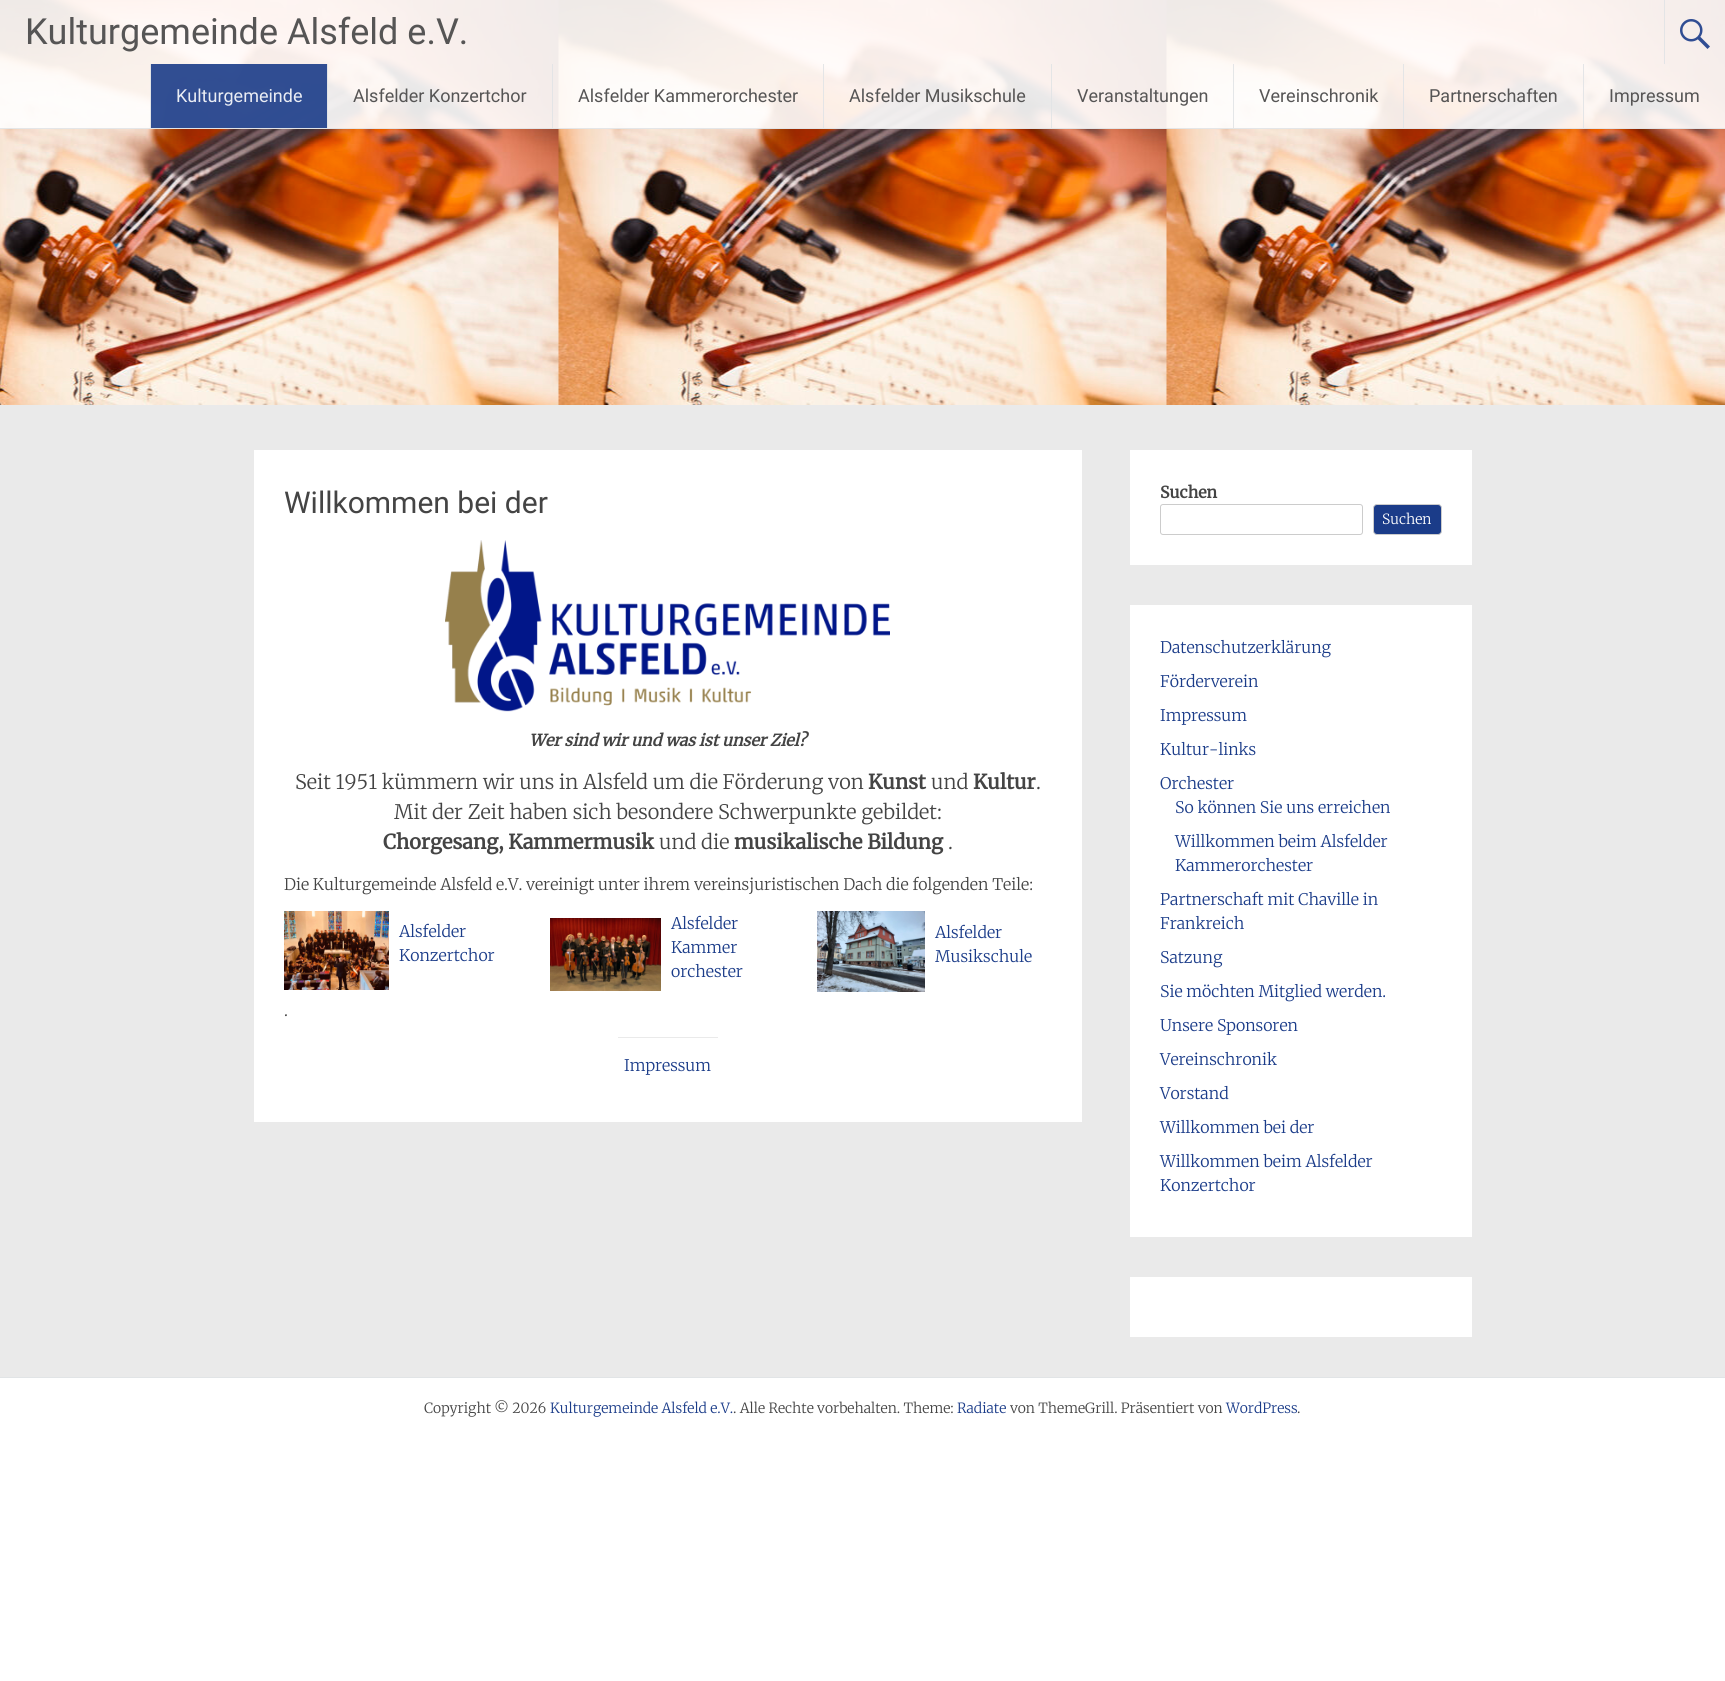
#include <cairo.h>
#include <math.h>
#include <stddef.h>


static void rgb(cairo_t *cr, int r, int g, int b)
{
	cairo_set_source_rgb(cr, r / 255.0, g / 255.0, b / 255.0);
}

static void face(cairo_t *cr, const char *family, double size, int italic, int bold)
{
	cairo_select_font_face(cr, family, italic ? CAIRO_FONT_SLANT_ITALIC : CAIRO_FONT_SLANT_NORMAL,
		bold ? CAIRO_FONT_WEIGHT_BOLD : CAIRO_FONT_WEIGHT_NORMAL);
	cairo_set_font_size(cr, size);
}

static void label(cairo_t *cr, double x, double y, const char *s)
{
	cairo_move_to(cr, x, y);
	cairo_show_text(cr, s);
}

static void rect(cairo_t *cr, double x, double y, double w, double h)
{
	cairo_rectangle(cr, x, y, w, h);
	cairo_fill(cr);
}

static void rrect(cairo_t *cr, double x, double y, double w, double h, double r)
{
	cairo_new_sub_path(cr);
	cairo_arc(cr, x + w - r, y + h - r, r, 0, M_PI / 2);
	cairo_arc(cr, x + r, y + h - r, r, M_PI / 2, M_PI);
	cairo_arc(cr, x + r, y + r, r, M_PI, 1.5 * M_PI);
	cairo_arc(cr, x + w - r, y + r, r, 1.5 * M_PI, 2 * M_PI);
	cairo_close_path(cr);
}

static void image(cairo_t *cr, const char *path, double x, double y, double w, double h)
{
	cairo_surface_t *image = cairo_image_surface_create_from_png(path);
	cairo_save(cr);
	cairo_set_source_surface(cr, image, x, y);
	cairo_rectangle(cr, x, y, w, h);
	cairo_fill(cr);
	cairo_restore(cr);
	cairo_surface_destroy(image);
}

static void draw(cairo_t *cr) {
	rgb(cr, 255, 255, 255);
	cairo_paint(cr);
	image(cr, "image0.png", 0, 0, 1725, 405);
	cairo_set_source_rgba(cr, 1, 1, 1, 0.9);
	rect(cr, 0, 0, 1725, 129);
	cairo_set_source_rgba(cr, 0.882, 0.894, 0.902, 0.9);
	rect(cr, 0, 128, 1725, 1);
	face(cr, "Roboto", 36, 0, 0);
	rgb(cr, 86, 85, 85);
	label(cr, 25, 44, "Kulturgemeinde Alsfeld e.V.");
	cairo_set_source_rgba(cr, 0.882, 0.894, 0.902, 0.9);
	rect(cr, 1664, 0, 1, 64);
	image(cr, "image1.png", 1680, 19, 30, 30);
	rect(cr, 150, 64, 1, 64);
	cairo_set_source_rgba(cr, 0.106, 0.235, 0.537, 0.9);
	rect(cr, 151, 64, 176, 64);
	face(cr, "Roboto", 18, 0, 0);
	rgb(cr, 234, 237, 244);
	label(cr, 176, 102, "Kulturgemeinde");
	cairo_set_source_rgba(cr, 0.882, 0.894, 0.902, 0.9);
	rect(cr, 327, 64, 1, 64);
	rgb(cr, 86, 85, 85);
	label(cr, 353, 102, "Alsfelder Konzertchor");
	cairo_set_source_rgba(cr, 0.882, 0.894, 0.902, 0.9);
	rect(cr, 552, 64, 1, 64);
	rgb(cr, 86, 85, 85);
	label(cr, 578, 102, "Alsfelder Kammerorchester");
	cairo_set_source_rgba(cr, 0.882, 0.894, 0.902, 0.9);
	rect(cr, 823, 64, 1, 64);
	rgb(cr, 86, 85, 85);
	label(cr, 849, 102, "Alsfelder Musikschule");
	cairo_set_source_rgba(cr, 0.882, 0.894, 0.902, 0.9);
	rect(cr, 1051, 64, 1, 64);
	rgb(cr, 86, 85, 85);
	label(cr, 1077, 102, "Veranstaltungen");
	cairo_set_source_rgba(cr, 0.882, 0.894, 0.902, 0.9);
	rect(cr, 1233, 64, 1, 64);
	rgb(cr, 86, 85, 85);
	label(cr, 1259, 102, "Vereinschronik");
	cairo_set_source_rgba(cr, 0.882, 0.894, 0.902, 0.9);
	rect(cr, 1403, 64, 1, 64);
	rgb(cr, 86, 85, 85);
	label(cr, 1429, 102, "Partnerschaften");
	cairo_set_source_rgba(cr, 0.882, 0.894, 0.902, 0.9);
	rect(cr, 1583, 64, 1, 64);
	rgb(cr, 86, 85, 85);
	label(cr, 1609, 102, "Impressum");
	rgb(cr, 234, 234, 234);
	rect(cr, 0, 405, 1725, 972);
	rgb(cr, 255, 255, 255);
	rect(cr, 254, 450, 828, 672);
	face(cr, "Roboto", 30, 0, 0);
	rgb(cr, 68, 68, 68);
	label(cr, 284, 513, "Willkommen bei der");
	image(cr, "image2.png", 445, 540, 445, 172);
	face(cr, "Merriweather", 16, 1, 1);
	label(cr, 529, 746, "Wer sind wir und was ist unser Ziel?");
	face(cr, "Merriweather Light", 20, 0, 0);
	label(cr, 295, 789, "Seit 1951 kümmern wir uns in Alsfeld um die Förderung von");
	face(cr, "Merriweather", 20, 0, 1);
	label(cr, 868, 789, "Kunst");
	face(cr, "Merriweather Light", 20, 0, 0);
	label(cr, 931, 789, "und");
	face(cr, "Merriweather", 20, 0, 1);
	label(cr, 973, 789, "Kultur");
	face(cr, "Merriweather Light", 20, 0, 0);
	label(cr, 1036, 789, ".");
	label(cr, 394, 819, "Mit der Zeit haben sich besondere Schwerpunkte gebildet:");
	face(cr, "Merriweather", 20, 0, 1);
	label(cr, 383, 849, "Chorgesang, Kammermusik");
	face(cr, "Merriweather Light", 20, 0, 0);
	label(cr, 659, 849, "und die");
	face(cr, "Merriweather", 20, 0, 1);
	label(cr, 734, 849, "musikalische Bildung");
	face(cr, "Merriweather Light", 20, 0, 0);
	label(cr, 948, 849, ".");
	face(cr, "Merriweather Light", 16, 0, 0);
	label(cr, 284, 890, "Die Kulturgemeinde Alsfeld e.V. vereinigt unter ihrem vereinsjuristischen Dach die folgenden Teile:");
	image(cr, "image3.png", 284, 911, 105, 79);
	rgb(cr, 27, 60, 137);
	label(cr, 399, 937, "Alsfelder");
	label(cr, 399, 961, "Konzertchor");
	image(cr, "image4.png", 550, 918, 111, 73);
	label(cr, 671, 929, "Alsfelder");
	label(cr, 671, 953, "Kammer");
	label(cr, 671, 977, "orchester");
	image(cr, "image5.png", 817, 911, 108, 81);
	label(cr, 935, 938, "Alsfelder");
	label(cr, 935, 962, "Musikschule");
	rgb(cr, 68, 68, 68);
	label(cr, 284, 1016, ".");
	rgb(cr, 234, 234, 234);
	rect(cr, 618, 1037, 100, 1);
	rgb(cr, 27, 60, 137);
	label(cr, 624, 1071, "Impressum");
	rgb(cr, 255, 255, 255);
	rect(cr, 1130, 450, 342, 115);
	face(cr, "Merriweather", 16, 0, 1);
	rgb(cr, 68, 68, 68);
	label(cr, 1160, 498, "Suchen");
	rrect(cr, 1160.5, 504.5, 202, 30, 2.5);
	rgb(cr, 204, 204, 204);
	cairo_set_line_width(cr, 1);
	cairo_stroke(cr);
	rgb(cr, 27, 60, 137);
	rrect(cr, 1373.5, 504.5, 68, 30, 3.5);
	cairo_fill_preserve(cr);
	rgb(cr, 204, 204, 204);
	cairo_stroke(cr);
	face(cr, "Merriweather Light", 14, 0, 0);
	rgb(cr, 255, 255, 255);
	label(cr, 1382, 524, "Suchen");
	rect(cr, 1130, 605, 342, 632);
	face(cr, "Merriweather Light", 16, 0, 0);
	rgb(cr, 27, 60, 137);
	label(cr, 1160, 653, "Datenschutzerklärung");
	label(cr, 1160, 687, "Förderverein");
	label(cr, 1160, 721, "Impressum");
	label(cr, 1160, 755, "Kultur-links");
	label(cr, 1160, 789, "Orchester");
	label(cr, 1175, 813, "So können Sie uns erreichen");
	label(cr, 1175, 847, "Willkommen beim Alsfelder");
	label(cr, 1175, 871, "Kammerorchester");
	label(cr, 1160, 905, "Partnerschaft mit Chaville in");
	label(cr, 1160, 929, "Frankreich");
	label(cr, 1160, 963, "Satzung");
	label(cr, 1160, 997, "Sie möchten Mitglied werden.");
	label(cr, 1160, 1031, "Unsere Sponsoren");
	label(cr, 1160, 1065, "Vereinschronik");
	label(cr, 1160, 1099, "Vorstand");
	label(cr, 1160, 1133, "Willkommen bei der");
	label(cr, 1160, 1167, "Willkommen beim Alsfelder");
	label(cr, 1160, 1191, "Konzertchor");
	rgb(cr, 255, 255, 255);
	rect(cr, 1130, 1277, 342, 60);
	rgb(cr, 225, 228, 230);
	rect(cr, 0, 1377, 1725, 1);
	face(cr, "Merriweather Light", 14, 0, 0);
	rgb(cr, 68, 68, 68);
	label(cr, 424, 1413, "Copyright © 2026");
	rgb(cr, 27, 60, 137);
	label(cr, 550, 1413, "Kulturgemeinde Alsfeld e.V.");
	rgb(cr, 68, 68, 68);
	label(cr, 733, 1413, ". Alle Rechte vorbehalten. Theme:");
	rgb(cr, 27, 60, 137);
	label(cr, 957, 1413, "Radiate");
	rgb(cr, 68, 68, 68);
	label(cr, 1010, 1413, "von ThemeGrill. Präsentiert von");
	rgb(cr, 27, 60, 137);
	label(cr, 1226, 1413, "WordPress");
	rgb(cr, 68, 68, 68);
	label(cr, 1297, 1413, ".");
}

int main(void) {
	cairo_surface_t *surface = cairo_image_surface_create(CAIRO_FORMAT_RGB24, 1725, 1681);
	cairo_t *cr = cairo_create(surface);
	cairo_font_options_t *options = cairo_font_options_create();
	cairo_font_options_set_hint_metrics(options, CAIRO_HINT_METRICS_OFF);
	cairo_font_options_set_hint_style(options, CAIRO_HINT_STYLE_NONE);
	cairo_set_font_options(cr, options);
	cairo_set_miter_limit(cr, 4);
	draw(cr);
	cairo_surface_write_to_png(surface, "render.png");
	cairo_font_options_destroy(options);
	cairo_destroy(cr);
	cairo_surface_destroy(surface);
	return 0;
}
